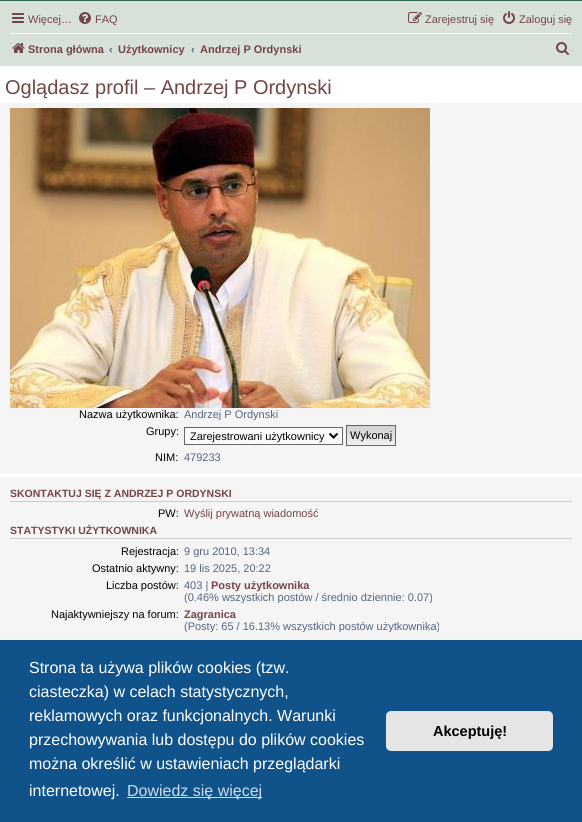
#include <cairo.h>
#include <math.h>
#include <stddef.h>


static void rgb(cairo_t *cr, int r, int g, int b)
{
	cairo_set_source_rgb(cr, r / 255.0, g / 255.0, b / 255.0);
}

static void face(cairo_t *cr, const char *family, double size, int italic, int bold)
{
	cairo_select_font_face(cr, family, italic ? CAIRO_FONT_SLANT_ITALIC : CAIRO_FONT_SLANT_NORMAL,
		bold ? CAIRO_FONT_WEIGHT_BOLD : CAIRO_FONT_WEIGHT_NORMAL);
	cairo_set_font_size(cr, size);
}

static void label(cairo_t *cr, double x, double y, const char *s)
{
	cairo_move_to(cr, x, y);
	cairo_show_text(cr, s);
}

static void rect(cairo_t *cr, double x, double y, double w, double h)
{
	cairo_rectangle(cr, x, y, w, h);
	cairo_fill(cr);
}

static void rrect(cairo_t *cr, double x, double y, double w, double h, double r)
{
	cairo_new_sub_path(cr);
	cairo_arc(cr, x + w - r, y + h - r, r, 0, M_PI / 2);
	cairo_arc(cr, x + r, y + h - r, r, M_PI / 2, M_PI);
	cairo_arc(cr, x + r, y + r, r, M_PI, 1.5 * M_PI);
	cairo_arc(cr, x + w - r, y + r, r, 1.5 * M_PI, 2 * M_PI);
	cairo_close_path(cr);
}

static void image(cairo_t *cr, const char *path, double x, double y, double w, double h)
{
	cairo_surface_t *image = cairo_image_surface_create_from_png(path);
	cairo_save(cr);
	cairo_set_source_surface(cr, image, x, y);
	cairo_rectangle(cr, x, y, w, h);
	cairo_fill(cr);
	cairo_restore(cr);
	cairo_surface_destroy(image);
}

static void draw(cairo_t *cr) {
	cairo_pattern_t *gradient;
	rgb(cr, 255, 255, 255);
	cairo_paint(cr);
	rgb(cr, 48, 103, 84);
	rect(cr, 0, 0, 582, 1);
	rgb(cr, 215, 225, 215);
	rect(cr, 0, 1, 582, 65);
	image(cr, "image0.png", 12, 13, 12, 10);
	face(cr, "Liberation Sans", 11, 0, 0);
	rgb(cr, 117, 68, 72);
	label(cr, 28, 23, "Więcej…");
	image(cr, "image1.png", 79, 12, 12, 12);
	label(cr, 95, 23, "FAQ");
	image(cr, "image2.png", 408, 12, 14, 11);
	label(cr, 425, 23, "Zarejestruj się");
	image(cr, "image3.png", 503, 11, 12, 13);
	label(cr, 519, 23, "Zaloguj się");
	rgb(cr, 255, 255, 255);
	rect(cr, 10, 33, 562, 1);
	image(cr, "image4.png", 12, 43, 13, 10);
	face(cr, "Liberation Sans", 11, 0, 1);
	rgb(cr, 117, 68, 72);
	label(cr, 28, 53, "Strona główna");
	rgb(cr, 83, 100, 130);
	label(cr, 109, 53, "‹");
	rgb(cr, 117, 68, 72);
	label(cr, 118, 53, "Użytkownicy");
	rgb(cr, 83, 100, 130);
	label(cr, 191, 53, "‹");
	rgb(cr, 117, 68, 72);
	label(cr, 200, 53, "Andrzej P Ordynski");
	image(cr, "image5.png", 556, 42, 13, 13);
	face(cr, "Liberation Sans", 20, 0, 0);
	label(cr, 5, 94, "Oglądasz profil – Andrzej P Ordynski");
	rgb(cr, 245, 245, 245);
	rect(cr, 0, 103, 582, 370);
	image(cr, "image6.png", 10, 108, 420, 300);
	face(cr, "Liberation Sans", 11, 0, 0);
	rgb(cr, 0, 0, 0);
	label(cr, 79, 418, "Nazwa użytkownika:");
	cairo_save(cr);
	cairo_rectangle(cr, 179, 408, 370, 12);
	cairo_clip(cr);
	rgb(cr, 83, 100, 130);
	label(cr, 184, 418, "Andrzej P Ordynski");
	cairo_restore(cr);
	label(cr, 146, 435, "Grupy:");
	rgb(cr, 250, 250, 250);
	cairo_rectangle(cr, 184.5, 427.5, 158, 17);
	cairo_fill_preserve(cr);
	rgb(cr, 102, 102, 102);
	cairo_set_line_width(cr, 1);
	cairo_stroke(cr);
	cairo_new_path(cr);
	cairo_move_to(cr, 329.5, 433.5);
	cairo_line_to(cr, 333.5, 437.5);
	cairo_line_to(cr, 337.5, 433.5);
	rgb(cr, 0, 0, 0);
	cairo_set_line_width(cr, 2);
	cairo_stroke(cr);
	label(cr, 190, 440, "Zarejestrowani użytkownicy");
	gradient = cairo_pattern_create_linear(371, 426, 371, 445);
	cairo_pattern_add_color_stop_rgba(gradient, 0, 0.824, 0.824, 0.824, 1);
	cairo_pattern_add_color_stop_rgba(gradient, 1, 0.937, 0.937, 0.937, 1);
	cairo_set_source(cr, gradient);
	cairo_pattern_destroy(gradient);
	rect(cr, 347, 426, 48, 19);
	cairo_rectangle(cr, 346.5, 425.5, 49, 20);
	rgb(cr, 102, 102, 102);
	cairo_set_line_width(cr, 1);
	cairo_stroke(cr);
	rgb(cr, 0, 0, 0);
	label(cr, 350, 439, "Wykonaj");
	label(cr, 155, 461, "NIM:");
	rgb(cr, 83, 100, 130);
	label(cr, 184, 461, "479233");
	rgb(cr, 245, 245, 245);
	rect(cr, 0, 477, 582, 163);
	rgb(cr, 204, 204, 204);
	rect(cr, 10, 501, 562, 1);
	face(cr, "Liberation Sans", 10.5, 0, 1);
	rgb(cr, 117, 68, 72);
	label(cr, 10, 497, "SKONTAKTUJ SIĘ Z ANDRZEJ P ORDYNSKI");
	face(cr, "Liberation Sans", 11, 0, 0);
	rgb(cr, 0, 0, 0);
	label(cr, 158, 517, "PW:");
	cairo_save(cr);
	cairo_rectangle(cr, 179, 507, 370, 12);
	cairo_clip(cr);
	rgb(cr, 117, 68, 72);
	label(cr, 184, 517, "Wyślij prywatną wiadomość");
	cairo_restore(cr);
	rgb(cr, 204, 204, 204);
	rect(cr, 10, 538, 562, 1);
	face(cr, "Liberation Sans", 10.5, 0, 1);
	rgb(cr, 117, 68, 72);
	label(cr, 10, 534, "STATYSTYKI UŻYTKOWNIKA");
	face(cr, "Liberation Sans", 11, 0, 0);
	rgb(cr, 0, 0, 0);
	label(cr, 121, 555, "Rejestracja:");
	cairo_save(cr);
	cairo_rectangle(cr, 179, 545, 370, 12);
	cairo_clip(cr);
	rgb(cr, 83, 100, 130);
	label(cr, 184, 555, "9 gru 2010, 13:34");
	cairo_restore(cr);
	label(cr, 92, 572, "Ostatnio aktywny:");
	rgb(cr, 83, 100, 130);
	label(cr, 184, 572, "19 lis 2025, 20:22");
	rgb(cr, 0, 0, 0);
	label(cr, 106, 589, "Liczba postów:");
	rgb(cr, 83, 100, 130);
	label(cr, 184, 589, "403 |");
	face(cr, "Liberation Sans", 11, 0, 1);
	rgb(cr, 117, 68, 72);
	label(cr, 211, 589, "Posty użytkownika");
	cairo_save(cr);
	cairo_rectangle(cr, 179, 579, 370, 24);
	cairo_clip(cr);
	face(cr, "Liberation Sans", 11, 0, 0);
	rgb(cr, 83, 100, 130);
	label(cr, 184, 601, "(0.46% wszystkich postów / średnio dziennie: 0.07)");
	cairo_restore(cr);
	face(cr, "Liberation Sans", 11, 0, 0);
	rgb(cr, 0, 0, 0);
	label(cr, 51, 618, "Najaktywniejszy na forum:");
	face(cr, "Liberation Sans", 11, 0, 1);
	rgb(cr, 117, 68, 72);
	label(cr, 184, 618, "Zagranica");
	cairo_save(cr);
	cairo_rectangle(cr, 179, 608, 370, 24);
	cairo_clip(cr);
	face(cr, "Liberation Sans", 11, 0, 0);
	rgb(cr, 83, 100, 130);
	label(cr, 184, 630, "(Posty: 65 / 16.13% wszystkich postów użytkownika)");
	cairo_restore(cr);
	rgb(cr, 15, 83, 138);
	rect(cr, 0, 640, 582, 182);
	face(cr, "Liberation Sans", 16, 0, 0);
	rgb(cr, 255, 255, 255);
	label(cr, 29, 673, "Strona ta używa plików cookies (tzw.");
	label(cr, 29, 697, "ciasteczka) w celach statystycznych,");
	label(cr, 29, 721, "reklamowych oraz funkcjonalnych. Warunki");
	label(cr, 29, 745, "przechowywania lub dostępu do plików cookies");
	label(cr, 29, 769, "można określić w ustawieniach przeglądarki");
	label(cr, 29, 796, "internetowej.");
	rgb(cr, 207, 221, 232);
	rect(cr, 127, 797, 135, 1);
	label(cr, 127, 796, "Dowiedz się więcej");
	rgb(cr, 229, 229, 229);
	rrect(cr, 386, 711, 167, 40, 5);
	cairo_fill(cr);
	face(cr, "Liberation Sans", 14.5, 0, 1);
	rgb(cr, 0, 0, 0);
	label(cr, 433, 736, "Akceptuję!");
}

int main(void) {
	cairo_surface_t *surface = cairo_image_surface_create(CAIRO_FORMAT_RGB24, 582, 822);
	cairo_t *cr = cairo_create(surface);
	cairo_font_options_t *options = cairo_font_options_create();
	cairo_font_options_set_hint_metrics(options, CAIRO_HINT_METRICS_OFF);
	cairo_font_options_set_hint_style(options, CAIRO_HINT_STYLE_NONE);
	cairo_set_font_options(cr, options);
	cairo_set_miter_limit(cr, 4);
	draw(cr);
	cairo_surface_write_to_png(surface, "render.png");
	cairo_font_options_destroy(options);
	cairo_destroy(cr);
	cairo_surface_destroy(surface);
	return 0;
}
